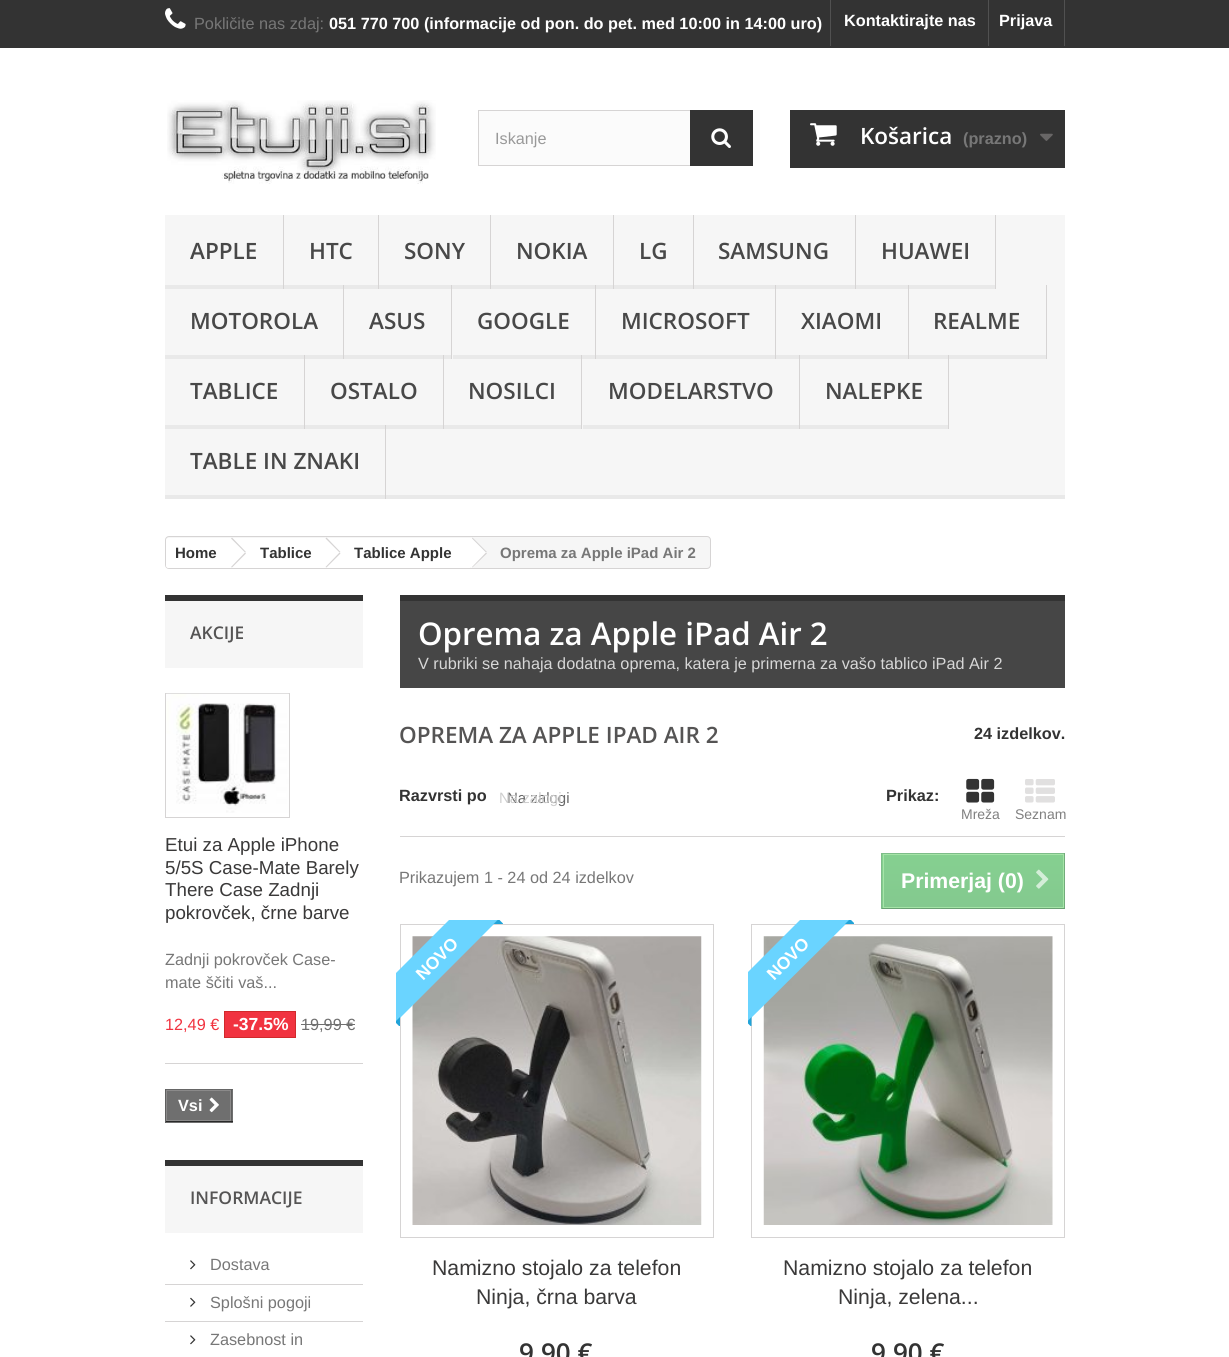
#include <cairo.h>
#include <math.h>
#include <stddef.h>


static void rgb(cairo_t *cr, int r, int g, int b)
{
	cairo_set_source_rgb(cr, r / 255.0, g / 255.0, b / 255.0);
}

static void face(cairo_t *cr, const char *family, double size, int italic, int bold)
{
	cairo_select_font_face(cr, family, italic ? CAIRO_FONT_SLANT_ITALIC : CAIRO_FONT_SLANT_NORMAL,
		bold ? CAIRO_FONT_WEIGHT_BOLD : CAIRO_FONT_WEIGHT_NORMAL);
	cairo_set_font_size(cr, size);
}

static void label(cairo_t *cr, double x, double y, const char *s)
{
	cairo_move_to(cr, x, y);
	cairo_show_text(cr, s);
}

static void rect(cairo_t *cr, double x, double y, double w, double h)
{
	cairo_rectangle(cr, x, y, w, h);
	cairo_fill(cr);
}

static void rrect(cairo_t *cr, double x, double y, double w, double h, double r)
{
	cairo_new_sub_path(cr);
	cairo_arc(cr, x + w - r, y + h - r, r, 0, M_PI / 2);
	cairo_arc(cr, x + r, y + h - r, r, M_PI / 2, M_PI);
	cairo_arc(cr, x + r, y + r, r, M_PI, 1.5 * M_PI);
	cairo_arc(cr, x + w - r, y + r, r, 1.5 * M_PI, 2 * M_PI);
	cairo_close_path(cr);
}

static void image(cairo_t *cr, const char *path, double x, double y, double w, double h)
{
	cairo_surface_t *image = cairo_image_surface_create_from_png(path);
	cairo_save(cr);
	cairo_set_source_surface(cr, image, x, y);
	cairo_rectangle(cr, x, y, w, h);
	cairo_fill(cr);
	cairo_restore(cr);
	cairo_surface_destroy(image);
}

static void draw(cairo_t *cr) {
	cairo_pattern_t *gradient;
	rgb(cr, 255, 255, 255);
	cairo_paint(cr);
	rgb(cr, 51, 51, 51);
	rect(cr, 0, 0, 1229, 48);
	image(cr, "image0.png", 165, 8, 21, 21);
	face(cr, "Liberation Sans", 16.25, 0, 0);
	rgb(cr, 119, 119, 119);
	label(cr, 194, 29, "Pokličite nas zdaj:");
	face(cr, "Liberation Sans", 16.25, 0, 1);
	rgb(cr, 255, 255, 255);
	label(cr, 329, 29, "051 770 700 (informacije od pon. do pet. med 10:00 in 14:00 uro)");
	rgb(cr, 81, 81, 81);
	rect(cr, 830, 0, 1, 46);
	rgb(cr, 255, 255, 255);
	label(cr, 844, 26, "Kontaktirajte nas");
	rgb(cr, 81, 81, 81);
	rect(cr, 1064, 0, 1, 46);
	rect(cr, 988, 0, 1, 46);
	rgb(cr, 255, 255, 255);
	label(cr, 999, 26, "Prijava");
	image(cr, "image1.png", 167, 100, 269, 84);
	rgb(cr, 251, 251, 251);
	rect(cr, 479, 111, 211, 54);
	cairo_rectangle(cr, 478.5, 110.5, 274, 55);
	rgb(cr, 214, 212, 212);
	cairo_set_line_width(cr, 1);
	cairo_stroke(cr);
	face(cr, "Liberation Sans", 16.25, 0, 0);
	rgb(cr, 153, 153, 153);
	label(cr, 495, 144, "Iskanje");
	rgb(cr, 51, 51, 51);
	rect(cr, 690, 110, 63, 56);
	image(cr, "image2.png", 711, 128, 20, 20);
	rect(cr, 790, 110, 275, 58);
	image(cr, "image3.png", 810, 123, 27, 23);
	face(cr, "Open Sans SemiBold", 22.5, 0, 0);
	rgb(cr, 255, 255, 255);
	label(cr, 860, 144, "Košarica");
	face(cr, "Liberation Sans", 16.25, 0, 1);
	rgb(cr, 119, 119, 119);
	label(cr, 963, 144, "(prazno)");
	image(cr, "image4.png", 1040, 133, 13, 8);
	rgb(cr, 246, 246, 246);
	rect(cr, 165, 215, 900, 280);
	rgb(cr, 233, 233, 233);
	rect(cr, 165, 495, 900, 4);
	rgb(cr, 214, 212, 212);
	rect(cr, 283, 215, 1, 74);
	rgb(cr, 233, 233, 233);
	rect(cr, 165, 285, 118, 4);
	face(cr, "Open Sans SemiBold", 22.5, 0, 0);
	rgb(cr, 72, 72, 72);
	label(cr, 190, 259, "APPLE");
	rgb(cr, 214, 212, 212);
	rect(cr, 378, 215, 1, 74);
	rgb(cr, 233, 233, 233);
	rect(cr, 284, 285, 94, 4);
	rgb(cr, 72, 72, 72);
	label(cr, 309, 259, "HTC");
	rgb(cr, 214, 212, 212);
	rect(cr, 490, 215, 1, 74);
	rgb(cr, 233, 233, 233);
	rect(cr, 379, 285, 111, 4);
	rgb(cr, 72, 72, 72);
	label(cr, 404, 259, "SONY");
	rgb(cr, 214, 212, 212);
	rect(cr, 613, 215, 1, 74);
	rgb(cr, 233, 233, 233);
	rect(cr, 491, 285, 122, 4);
	rgb(cr, 72, 72, 72);
	label(cr, 516, 259, "NOKIA");
	rgb(cr, 214, 212, 212);
	rect(cr, 693, 215, 1, 74);
	rgb(cr, 233, 233, 233);
	rect(cr, 614, 285, 79, 4);
	rgb(cr, 72, 72, 72);
	label(cr, 639, 259, "LG");
	rgb(cr, 214, 212, 212);
	rect(cr, 855, 215, 1, 74);
	rgb(cr, 233, 233, 233);
	rect(cr, 694, 285, 161, 4);
	rgb(cr, 72, 72, 72);
	label(cr, 718, 259, "SAMSUNG");
	rgb(cr, 214, 212, 212);
	rect(cr, 995, 215, 1, 74);
	rgb(cr, 233, 233, 233);
	rect(cr, 856, 285, 139, 4);
	rgb(cr, 72, 72, 72);
	label(cr, 881, 259, "HUAWEI");
	rgb(cr, 214, 212, 212);
	rect(cr, 343, 285, 1, 74);
	rgb(cr, 233, 233, 233);
	rect(cr, 165, 355, 178, 4);
	rgb(cr, 72, 72, 72);
	label(cr, 190, 329, "MOTOROLA");
	rgb(cr, 214, 212, 212);
	rect(cr, 451, 285, 1, 74);
	rgb(cr, 233, 233, 233);
	rect(cr, 344, 355, 107, 4);
	rgb(cr, 72, 72, 72);
	label(cr, 369, 329, "ASUS");
	rgb(cr, 214, 212, 212);
	rect(cr, 595, 285, 1, 74);
	rgb(cr, 233, 233, 233);
	rect(cr, 453, 355, 142, 4);
	rgb(cr, 72, 72, 72);
	label(cr, 477, 329, "GOOGLE");
	rgb(cr, 214, 212, 212);
	rect(cr, 775, 285, 1, 74);
	rgb(cr, 233, 233, 233);
	rect(cr, 596, 355, 179, 4);
	rgb(cr, 72, 72, 72);
	label(cr, 621, 329, "MICROSOFT");
	rgb(cr, 214, 212, 212);
	rect(cr, 908, 285, 1, 74);
	rgb(cr, 233, 233, 233);
	rect(cr, 776, 355, 132, 4);
	rgb(cr, 72, 72, 72);
	label(cr, 801, 329, "XIAOMI");
	rgb(cr, 214, 212, 212);
	rect(cr, 1046, 285, 1, 74);
	rgb(cr, 233, 233, 233);
	rect(cr, 909, 355, 137, 4);
	rgb(cr, 72, 72, 72);
	label(cr, 933, 329, "REALME");
	rgb(cr, 214, 212, 212);
	rect(cr, 304, 355, 1, 74);
	rgb(cr, 233, 233, 233);
	rect(cr, 165, 425, 139, 4);
	rgb(cr, 72, 72, 72);
	label(cr, 190, 399, "TABLICE");
	rgb(cr, 214, 212, 212);
	rect(cr, 443, 355, 1, 74);
	rgb(cr, 233, 233, 233);
	rect(cr, 305, 425, 138, 4);
	rgb(cr, 72, 72, 72);
	label(cr, 330, 399, "OSTALO");
	rgb(cr, 214, 212, 212);
	rect(cr, 581, 355, 1, 74);
	rgb(cr, 233, 233, 233);
	rect(cr, 444, 425, 137, 4);
	rgb(cr, 72, 72, 72);
	label(cr, 468, 399, "NOSILCI");
	rgb(cr, 214, 212, 212);
	rect(cr, 799, 355, 1, 74);
	rgb(cr, 233, 233, 233);
	rect(cr, 583, 425, 216, 4);
	rgb(cr, 72, 72, 72);
	label(cr, 608, 399, "MODELARSTVO");
	rgb(cr, 214, 212, 212);
	rect(cr, 948, 355, 1, 74);
	rgb(cr, 233, 233, 233);
	rect(cr, 800, 425, 148, 4);
	rgb(cr, 72, 72, 72);
	label(cr, 825, 399, "NALEPKE");
	rgb(cr, 214, 212, 212);
	rect(cr, 385, 425, 1, 74);
	rgb(cr, 72, 72, 72);
	label(cr, 190, 469, "TABLE IN ZNAKI");
	rgb(cr, 246, 246, 246);
	rrect(cr, 165.5, 536.5, 545, 32, 3.5);
	cairo_fill_preserve(cr);
	rgb(cr, 214, 212, 212);
	cairo_stroke(cr);
	rgb(cr, 255, 255, 255);
	cairo_new_path(cr);
	cairo_move_to(cr, 168.5, 538);
	cairo_line_to(cr, 235, 538);
	cairo_line_to(cr, 235, 568);
	cairo_line_to(cr, 168.5, 568);
	cairo_curve_to(cr, 167, 568, 166, 567, 166, 565.5);
	cairo_line_to(cr, 166, 540.5);
	cairo_curve_to(cr, 166, 539, 167, 538, 168.5, 538);
	cairo_close_path(cr);
	cairo_fill(cr);
	face(cr, "Liberation Sans", 15, 0, 1);
	rgb(cr, 51, 51, 51);
	label(cr, 175, 558, "Home");
	rgb(cr, 255, 255, 255);
	cairo_new_path(cr);
	cairo_move_to(cr, 238.5, 538.5);
	cairo_line_to(cr, 238, 538);
	cairo_line_to(cr, 235.5, 538);
	cairo_line_to(cr, 235, 538.5);
	cairo_line_to(cr, 222.5, 551);
	cairo_curve_to(cr, 221.5, 552, 221.5, 553.5, 222.5, 554.5);
	cairo_line_to(cr, 235, 567);
	cairo_curve_to(cr, 236, 568, 237.5, 568, 238.5, 567);
	cairo_line_to(cr, 251, 554.5);
	cairo_curve_to(cr, 252, 553.5, 252, 552, 251, 551);
	cairo_close_path(cr);
	cairo_fill(cr);
	rect(cr, 235, 538, 91, 30);
	rgb(cr, 214, 212, 212);
	cairo_new_path(cr);
	cairo_move_to(cr, 232, 537.5);
	cairo_line_to(cr, 246, 552);
	cairo_line_to(cr, 245, 552.5);
	cairo_line_to(cr, 231, 538.5);
	cairo_close_path(cr);
	cairo_fill(cr);
	cairo_new_path(cr);
	cairo_move_to(cr, 245, 552.5);
	cairo_line_to(cr, 246, 553.5);
	cairo_line_to(cr, 232, 567.5);
	cairo_line_to(cr, 231, 567);
	cairo_close_path(cr);
	cairo_fill(cr);
	rgb(cr, 51, 51, 51);
	label(cr, 260, 558, "Tablice");
	rgb(cr, 255, 255, 255);
	cairo_new_path(cr);
	cairo_move_to(cr, 333, 538.5);
	cairo_line_to(cr, 332.5, 538);
	cairo_line_to(cr, 330, 538);
	cairo_line_to(cr, 329.5, 538.5);
	cairo_line_to(cr, 317, 551);
	cairo_curve_to(cr, 316, 552, 316, 553.5, 317, 554.5);
	cairo_line_to(cr, 329.5, 567);
	cairo_curve_to(cr, 330.5, 568, 332, 568, 333, 567);
	cairo_line_to(cr, 345.5, 554.5);
	cairo_curve_to(cr, 346.5, 553.5, 346.5, 552, 345.5, 551);
	cairo_close_path(cr);
	cairo_fill(cr);
	rect(cr, 326, 538, 144, 30);
	rgb(cr, 214, 212, 212);
	cairo_new_path(cr);
	cairo_move_to(cr, 326.5, 537.5);
	cairo_line_to(cr, 340.5, 552);
	cairo_line_to(cr, 339.5, 552.5);
	cairo_line_to(cr, 325.5, 538.5);
	cairo_close_path(cr);
	cairo_fill(cr);
	cairo_new_path(cr);
	cairo_move_to(cr, 339.5, 552.5);
	cairo_line_to(cr, 340.5, 553.5);
	cairo_line_to(cr, 326.5, 567.5);
	cairo_line_to(cr, 325.5, 567);
	cairo_close_path(cr);
	cairo_fill(cr);
	rgb(cr, 51, 51, 51);
	label(cr, 354, 558, "Tablice Apple");
	rgb(cr, 255, 255, 255);
	cairo_new_path(cr);
	cairo_move_to(cr, 473.5, 538.5);
	cairo_line_to(cr, 473, 538);
	cairo_line_to(cr, 470.5, 538);
	cairo_line_to(cr, 470, 538.5);
	cairo_line_to(cr, 457.5, 551);
	cairo_curve_to(cr, 456.5, 552, 456.5, 553.5, 457.5, 554.5);
	cairo_line_to(cr, 470, 567);
	cairo_curve_to(cr, 471, 568, 472.5, 568, 473.5, 567);
	cairo_line_to(cr, 486, 554.5);
	cairo_curve_to(cr, 487, 553.5, 487, 552, 486, 551);
	cairo_close_path(cr);
	cairo_fill(cr);
	rgb(cr, 214, 212, 212);
	cairo_new_path(cr);
	cairo_move_to(cr, 472.5, 537.5);
	cairo_line_to(cr, 487, 552);
	cairo_line_to(cr, 486, 552.5);
	cairo_line_to(cr, 472, 538.5);
	cairo_close_path(cr);
	cairo_fill(cr);
	cairo_new_path(cr);
	cairo_move_to(cr, 486, 552.5);
	cairo_line_to(cr, 487, 553.5);
	cairo_line_to(cr, 472.5, 567.5);
	cairo_line_to(cr, 472, 567);
	cairo_close_path(cr);
	cairo_fill(cr);
	rgb(cr, 119, 119, 119);
	label(cr, 500, 558, "Oprema za Apple iPad Air 2");
	rgb(cr, 246, 246, 246);
	rect(cr, 165, 601, 198, 67);
	rgb(cr, 51, 51, 51);
	rect(cr, 165, 595, 198, 6);
	face(cr, "Open Sans SemiBold", 17.5, 0, 0);
	rgb(cr, 85, 84, 84);
	label(cr, 190, 639, "AKCIJE");
	rgb(cr, 214, 212, 212);
	rect(cr, 165, 1063, 198, 1);
	cairo_rectangle(cr, 165.5, 693.5, 124, 124);
	cairo_stroke(cr);
	image(cr, "image5.png", 166, 693, 123, 120);
	face(cr, "Liberation Sans", 18.75, 0, 0);
	rgb(cr, 58, 57, 57);
	label(cr, 165, 851, "Etui za Apple iPhone");
	label(cr, 165, 874, "5/5S Case-Mate Barely");
	label(cr, 165, 896, "There Case Zadnji");
	label(cr, 165, 919, "pokrovček, črne barve");
	face(cr, "Liberation Sans", 16.25, 0, 0);
	rgb(cr, 119, 119, 119);
	label(cr, 165, 965, "Zadnji pokrovček Case-");
	label(cr, 165, 988, "mate ščiti vaš...");
	rgb(cr, 241, 51, 64);
	label(cr, 165, 1030, "12,49 €");
	cairo_rectangle(cr, 224.5, 1011.5, 71, 26);
	cairo_fill_preserve(cr);
	rgb(cr, 208, 42, 44);
	cairo_stroke(cr);
	face(cr, "Liberation Sans", 17.5, 0, 1);
	rgb(cr, 255, 255, 255);
	label(cr, 233, 1030, "-37.5%");
	face(cr, "Liberation Sans", 16.25, 0, 0);
	rgb(cr, 111, 111, 111);
	label(cr, 301, 1030, "19,99 €");
	rect(cr, 301, 1024, 54, 1);
	rect(cr, 166, 1090, 67, 33);
	rgb(cr, 102, 102, 102);
	rect(cr, 165, 1089, 68, 1);
	rgb(cr, 95, 95, 95);
	rect(cr, 231, 1089, 1, 34);
	rgb(cr, 41, 41, 41);
	rect(cr, 165, 1121, 68, 1);
	rgb(cr, 95, 95, 95);
	rect(cr, 165, 1089, 1, 34);
	cairo_rectangle(cr, 166.5, 1090.5, 64, 30);
	rgb(cr, 139, 138, 138);
	cairo_stroke(cr);
	face(cr, "Liberation Sans", 16.25, 0, 1);
	rgb(cr, 255, 255, 255);
	label(cr, 178, 1111, "Vsi");
	image(cr, "image6.png", 209, 1097, 10, 16);
	rgb(cr, 246, 246, 246);
	rect(cr, 165, 1166, 198, 67);
	rgb(cr, 51, 51, 51);
	rect(cr, 165, 1160, 198, 6);
	face(cr, "Open Sans SemiBold", 17.5, 0, 0);
	rgb(cr, 85, 84, 84);
	label(cr, 190, 1204, "INFORMACIJE");
	image(cr, "image7.png", 190, 1260, 6, 10);
	face(cr, "Liberation Sans", 16.25, 0, 0);
	rgb(cr, 119, 119, 119);
	label(cr, 210, 1270, "Dostava");
	rgb(cr, 214, 212, 212);
	rect(cr, 165, 1284, 198, 1);
	image(cr, "image8.png", 190, 1297, 6, 10);
	rgb(cr, 119, 119, 119);
	label(cr, 210, 1308, "Splošni pogoji");
	rgb(cr, 214, 212, 212);
	rect(cr, 165, 1321, 198, 1);
	image(cr, "image7.png", 190, 1335, 6, 10);
	rgb(cr, 119, 119, 119);
	label(cr, 210, 1345, "Zasebnost in");
	rgb(cr, 51, 51, 51);
	rect(cr, 400, 595, 665, 6);
	rgb(cr, 70, 70, 70);
	rect(cr, 400, 601, 665, 87);
	face(cr, "Open Sans SemiBold", 31.25, 0, 0);
	rgb(cr, 255, 255, 255);
	label(cr, 418, 645, "Oprema za Apple iPad Air 2");
	face(cr, "Liberation Sans", 16.25, 0, 0);
	rgb(cr, 215, 215, 215);
	label(cr, 418, 669, "V rubriki se nahaja dodatna oprema, katera je primerna za vašo tablico iPad Air 2");
	face(cr, "Open Sans SemiBold", 22.5, 0, 0);
	rgb(cr, 85, 84, 84);
	label(cr, 399, 743, "OPREMA ZA APPLE IPAD AIR 2");
	face(cr, "Liberation Sans", 16.25, 0, 1);
	rgb(cr, 51, 51, 51);
	label(cr, 974, 739, "24 izdelkov.");
	rgb(cr, 214, 212, 212);
	rect(cr, 400, 836, 665, 1);
	rgb(cr, 51, 51, 51);
	label(cr, 399, 801, "Razvrsti po");
	face(cr, "Liberation Sans", 15, 0, 0);
	rgb(cr, 102, 102, 102);
	label(cr, 507, 803, "Na zalogi");
	rgb(cr, 206, 206, 206);
	label(cr, 499, 803, "Na zalogi");
	face(cr, "Liberation Sans", 16.25, 0, 1);
	rgb(cr, 51, 51, 51);
	label(cr, 886, 801, "Prikaz:");
	image(cr, "image9.png", 966, 778, 29, 25);
	face(cr, "Liberation Sans", 14, 0, 0);
	rgb(cr, 128, 128, 128);
	label(cr, 961, 819, "Mreža");
	image(cr, "image10.png", 1025, 779, 30, 24);
	label(cr, 1015, 819, "Seznam");
	face(cr, "Liberation Sans", 16.25, 0, 0);
	rgb(cr, 119, 119, 119);
	label(cr, 399, 883, "Prikazujem 1 - 24 od 24 izdelkov");
	gradient = cairo_pattern_create_linear(973, 854, 973, 908);
	cairo_pattern_add_color_stop_rgba(gradient, 0, 0.522, 0.816, 0.565, 1);
	cairo_pattern_add_color_stop_rgba(gradient, 1, 0.518, 0.788, 0.561, 1);
	cairo_set_source(cr, gradient);
	cairo_pattern_destroy(gradient);
	rect(cr, 882, 854, 181, 54);
	rgb(cr, 126, 189, 137);
	rect(cr, 881, 853, 184, 1);
	rgb(cr, 113, 172, 122);
	rect(cr, 1064, 853, 1, 56);
	rgb(cr, 106, 160, 115);
	rect(cr, 881, 908, 184, 1);
	rgb(cr, 126, 189, 137);
	rect(cr, 881, 853, 1, 56);
	cairo_rectangle(cr, 883.5, 854.5, 180, 53);
	rgb(cr, 165, 228, 167);
	cairo_stroke(cr);
	face(cr, "Liberation Sans", 21.25, 0, 1);
	rgb(cr, 255, 255, 255);
	label(cr, 901, 888, "Primerjaj (0)");
	image(cr, "image11.png", 1036, 869, 13, 20);
	cairo_rectangle(cr, 400.5, 924.5, 313, 313);
	rgb(cr, 214, 212, 212);
	cairo_stroke(cr);
	image(cr, "image12.png", 412, 936, 290, 289);
	cairo_save(cr);
	cairo_rectangle(cr, 396, 920, 107, 106);
	cairo_clip(cr);
	rgb(cr, 106, 212, 255);
	cairo_new_path(cr);
	cairo_move_to(cr, 366, 1003);
	cairo_line_to(cr, 481, 888);
	cairo_line_to(cr, 505, 913);
	cairo_line_to(cr, 391, 1027);
	cairo_close_path(cr);
	cairo_fill(cr);
	rgb(cr, 33, 163, 216);
	cairo_new_path(cr);
	cairo_move_to(cr, 503.5, 924);
	cairo_line_to(cr, 493.5, 924);
	cairo_line_to(cr, 498.5, 919);
	cairo_close_path(cr);
	cairo_fill(cr);
	cairo_restore(cr);
	face(cr, "Liberation Sans", 17.5, 0, 1);
	rgb(cr, 255, 255, 255);
	cairo_save(cr);
	cairo_translate(cr, 423, 981);
	cairo_rotate(cr, -45 * M_PI / 180);
	label(cr, 0, 0, "NOVO");
	cairo_restore(cr);
	cairo_save(cr);
	cairo_rectangle(cr, 396, 920, 107, 106);
	cairo_clip(cr);
	rgb(cr, 33, 163, 216);
	cairo_new_path(cr);
	cairo_move_to(cr, 400, 1017);
	cairo_line_to(cr, 400, 1027);
	cairo_line_to(cr, 395, 1022);
	cairo_close_path(cr);
	cairo_fill(cr);
	cairo_restore(cr);
	face(cr, "Liberation Sans", 21.25, 0, 0);
	rgb(cr, 58, 57, 57);
	label(cr, 432, 1275, "Namizno stojalo za telefon");
	label(cr, 476, 1304, "Ninja, črna barva");
	face(cr, "Open Sans SemiBold", 26, 0, 0);
	rgb(cr, 51, 51, 51);
	label(cr, 519, 1362, "9,90 €");
	cairo_rectangle(cr, 751.5, 924.5, 313, 313);
	rgb(cr, 214, 212, 212);
	cairo_stroke(cr);
	image(cr, "image13.png", 763, 936, 290, 289);
	cairo_save(cr);
	cairo_rectangle(cr, 748, 920, 106, 106);
	cairo_clip(cr);
	rgb(cr, 106, 212, 255);
	cairo_new_path(cr);
	cairo_move_to(cr, 717, 1003);
	cairo_line_to(cr, 832, 888);
	cairo_line_to(cr, 857, 913);
	cairo_line_to(cr, 742, 1027);
	cairo_close_path(cr);
	cairo_fill(cr);
	rgb(cr, 33, 163, 216);
	cairo_new_path(cr);
	cairo_move_to(cr, 855, 924);
	cairo_line_to(cr, 845, 924);
	cairo_line_to(cr, 850, 919);
	cairo_close_path(cr);
	cairo_fill(cr);
	cairo_restore(cr);
	face(cr, "Liberation Sans", 17.5, 0, 1);
	rgb(cr, 255, 255, 255);
	cairo_save(cr);
	cairo_translate(cr, 774, 981);
	cairo_rotate(cr, -45 * M_PI / 180);
	label(cr, 0, 0, "NOVO");
	cairo_restore(cr);
	cairo_save(cr);
	cairo_rectangle(cr, 748, 920, 106, 106);
	cairo_clip(cr);
	rgb(cr, 33, 163, 216);
	cairo_new_path(cr);
	cairo_move_to(cr, 751.5, 1017);
	cairo_line_to(cr, 751.5, 1027);
	cairo_line_to(cr, 746.5, 1022);
	cairo_close_path(cr);
	cairo_fill(cr);
	cairo_restore(cr);
	face(cr, "Liberation Sans", 21.25, 0, 0);
	rgb(cr, 58, 57, 57);
	label(cr, 783, 1275, "Namizno stojalo za telefon");
	label(cr, 838, 1304, "Ninja, zelena...");
	face(cr, "Open Sans SemiBold", 26, 0, 0);
	rgb(cr, 51, 51, 51);
	label(cr, 871, 1362, "9,90 €");
}

int main(void) {
	cairo_surface_t *surface = cairo_image_surface_create(CAIRO_FORMAT_RGB24, 1229, 1357);
	cairo_t *cr = cairo_create(surface);
	cairo_font_options_t *options = cairo_font_options_create();
	cairo_font_options_set_hint_metrics(options, CAIRO_HINT_METRICS_OFF);
	cairo_font_options_set_hint_style(options, CAIRO_HINT_STYLE_NONE);
	cairo_set_font_options(cr, options);
	cairo_set_miter_limit(cr, 4);
	draw(cr);
	cairo_surface_write_to_png(surface, "render.png");
	cairo_font_options_destroy(options);
	cairo_destroy(cr);
	cairo_surface_destroy(surface);
	return 0;
}
